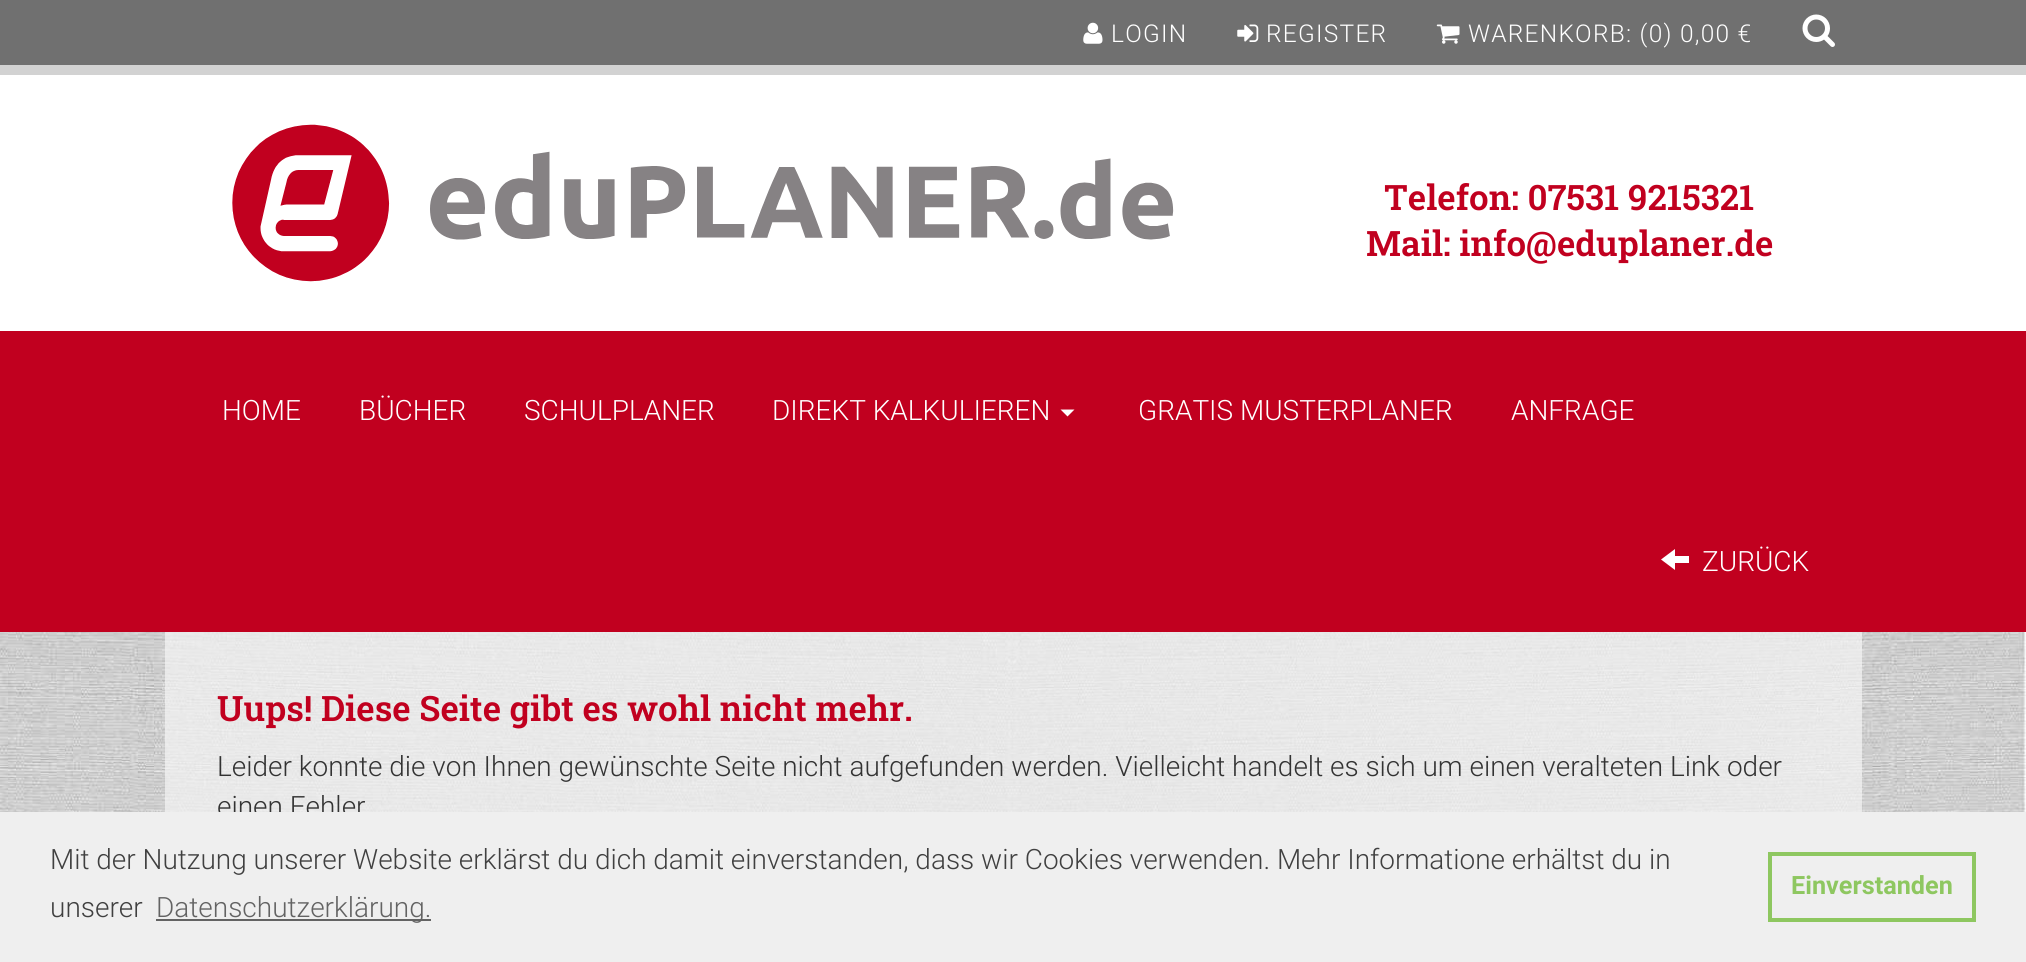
#include <cairo.h>
#include <math.h>
#include <stddef.h>


static void rgb(cairo_t *cr, int r, int g, int b)
{
	cairo_set_source_rgb(cr, r / 255.0, g / 255.0, b / 255.0);
}

static void face(cairo_t *cr, const char *family, double size, int italic, int bold)
{
	cairo_select_font_face(cr, family, italic ? CAIRO_FONT_SLANT_ITALIC : CAIRO_FONT_SLANT_NORMAL,
		bold ? CAIRO_FONT_WEIGHT_BOLD : CAIRO_FONT_WEIGHT_NORMAL);
	cairo_set_font_size(cr, size);
}

static void label(cairo_t *cr, double x, double y, const char *s)
{
	cairo_move_to(cr, x, y);
	cairo_show_text(cr, s);
}

static void tracked(cairo_t *cr, double x, double y, const char *s, double letter, double word)
{
	cairo_move_to(cr, x, y);
	while (*s) {
		char ch[5] = {0};
		int n = 0;
		do ch[n++] = *s++; while ((*s & 0xC0) == 0x80);
		cairo_show_text(cr, ch);
		cairo_rel_move_to(cr, letter + word * (*ch == ' '), 0);
	}
}

static void rect(cairo_t *cr, double x, double y, double w, double h)
{
	cairo_rectangle(cr, x, y, w, h);
	cairo_fill(cr);
}

static void image(cairo_t *cr, const char *path, double x, double y, double w, double h)
{
	cairo_surface_t *image = cairo_image_surface_create_from_png(path);
	cairo_save(cr);
	cairo_set_source_surface(cr, image, x, y);
	cairo_rectangle(cr, x, y, w, h);
	cairo_fill(cr);
	cairo_restore(cr);
	cairo_surface_destroy(image);
}

static void draw(cairo_t *cr) {
	rgb(cr, 255, 255, 255);
	cairo_paint(cr);
	image(cr, "image0.png", 0, 632, 2026, 180);
	rgb(cr, 112, 112, 112);
	rect(cr, 0, 0, 2026, 65);
	rgb(cr, 210, 210, 210);
	rect(cr, 0, 65, 2026, 10);
	image(cr, "image1.png", 1083, 22, 20, 22);
	face(cr, "Roboto Light", 24.5, 0, 0);
	rgb(cr, 255, 255, 255);
	tracked(cr, 1111, 42, "LOGIN", 1.25, 0);
	image(cr, "image2.png", 1237, 24, 22, 18);
	tracked(cr, 1266, 42, "REGISTER", 1.25, 0);
	image(cr, "image3.png", 1436, 24, 24, 20);
	tracked(cr, 1468, 42, "WARENKORB: (0) 0,00 €", 1.25, 0);
	image(cr, "image4.png", 1802, 14, 33, 33);
	image(cr, "image5.png", 232, 124, 942, 158);
	face(cr, "Roboto Slab SemiBold", 35, 0, 0);
	rgb(cr, 193, 0, 31);
	label(cr, 1384, 210, "Telefon: 07531 9215321");
	label(cr, 1366, 256, "Mail: info@eduplaner.de");
	rect(cr, 0, 331, 2026, 301);
	face(cr, "Roboto Light", 28, 0, 0);
	rgb(cr, 255, 255, 255);
	label(cr, 222, 420, "HOME");
	label(cr, 359, 420, "BÜCHER");
	label(cr, 524, 420, "SCHULPLANER");
	label(cr, 772, 420, "DIREKT KALKULIEREN");
	cairo_new_path(cr);
	cairo_move_to(cr, 1060.5, 409.5);
	cairo_line_to(cr, 1074.5, 409.5);
	cairo_line_to(cr, 1067.5, 416.5);
	cairo_close_path(cr);
	cairo_fill(cr);
	label(cr, 1138, 420, "GRATIS MUSTERPLANER");
	label(cr, 1511, 420, "ANFRAGE");
	cairo_new_path(cr);
	cairo_move_to(cr, 1661, 559.5);
	cairo_line_to(cr, 1675, 549);
	cairo_line_to(cr, 1675, 556);
	cairo_line_to(cr, 1689, 556);
	cairo_line_to(cr, 1689, 563);
	cairo_line_to(cr, 1675, 563);
	cairo_line_to(cr, 1675, 570);
	cairo_close_path(cr);
	cairo_fill(cr);
	label(cr, 1702, 571, "ZURÜCK");
	cairo_set_source_rgba(cr, 0.961, 0.961, 0.961, 0.7);
	rect(cr, 165, 632, 1697, 180);
	face(cr, "Roboto Slab SemiBold", 35, 0, 0);
	rgb(cr, 193, 0, 31);
	label(cr, 217, 721, "Uups! Diese Seite gibt es wohl nicht mehr.");
	face(cr, "Roboto Light", 28, 0, 0);
	rgb(cr, 51, 51, 51);
	label(cr, 217, 776, "Leider konnte die von Ihnen gewünschte Seite nicht aufgefunden werden. Vielleicht handelt es sich um einen veralteten Link oder");
	label(cr, 217, 816, "einen Fehler");
	rgb(cr, 239, 239, 239);
	rect(cr, 0, 812, 2026, 150);
	rgb(cr, 64, 64, 64);
	label(cr, 50, 869, "Mit der Nutzung unserer Website erklärst du dich damit einverstanden, dass wir Cookies verwenden. Mehr Informatione erhältst du in");
	label(cr, 50, 917, "unserer");
	rgb(cr, 99, 99, 99);
	rect(cr, 156, 919, 275, 2);
	label(cr, 156, 917, "Datenschutzerklärung.");
	cairo_rectangle(cr, 1770, 854, 204, 66);
	rgb(cr, 142, 199, 96);
	cairo_set_line_width(cr, 4);
	cairo_stroke(cr);
	face(cr, "Roboto", 25.25, 0, 1);
	label(cr, 1791, 894, "Einverstanden");
}

int main(void) {
	cairo_surface_t *surface = cairo_image_surface_create(CAIRO_FORMAT_RGB24, 2026, 962);
	cairo_t *cr = cairo_create(surface);
	cairo_font_options_t *options = cairo_font_options_create();
	cairo_font_options_set_hint_metrics(options, CAIRO_HINT_METRICS_OFF);
	cairo_font_options_set_hint_style(options, CAIRO_HINT_STYLE_NONE);
	cairo_set_font_options(cr, options);
	cairo_set_miter_limit(cr, 4);
	draw(cr);
	cairo_surface_write_to_png(surface, "render.png");
	cairo_font_options_destroy(options);
	cairo_destroy(cr);
	cairo_surface_destroy(surface);
	return 0;
}
